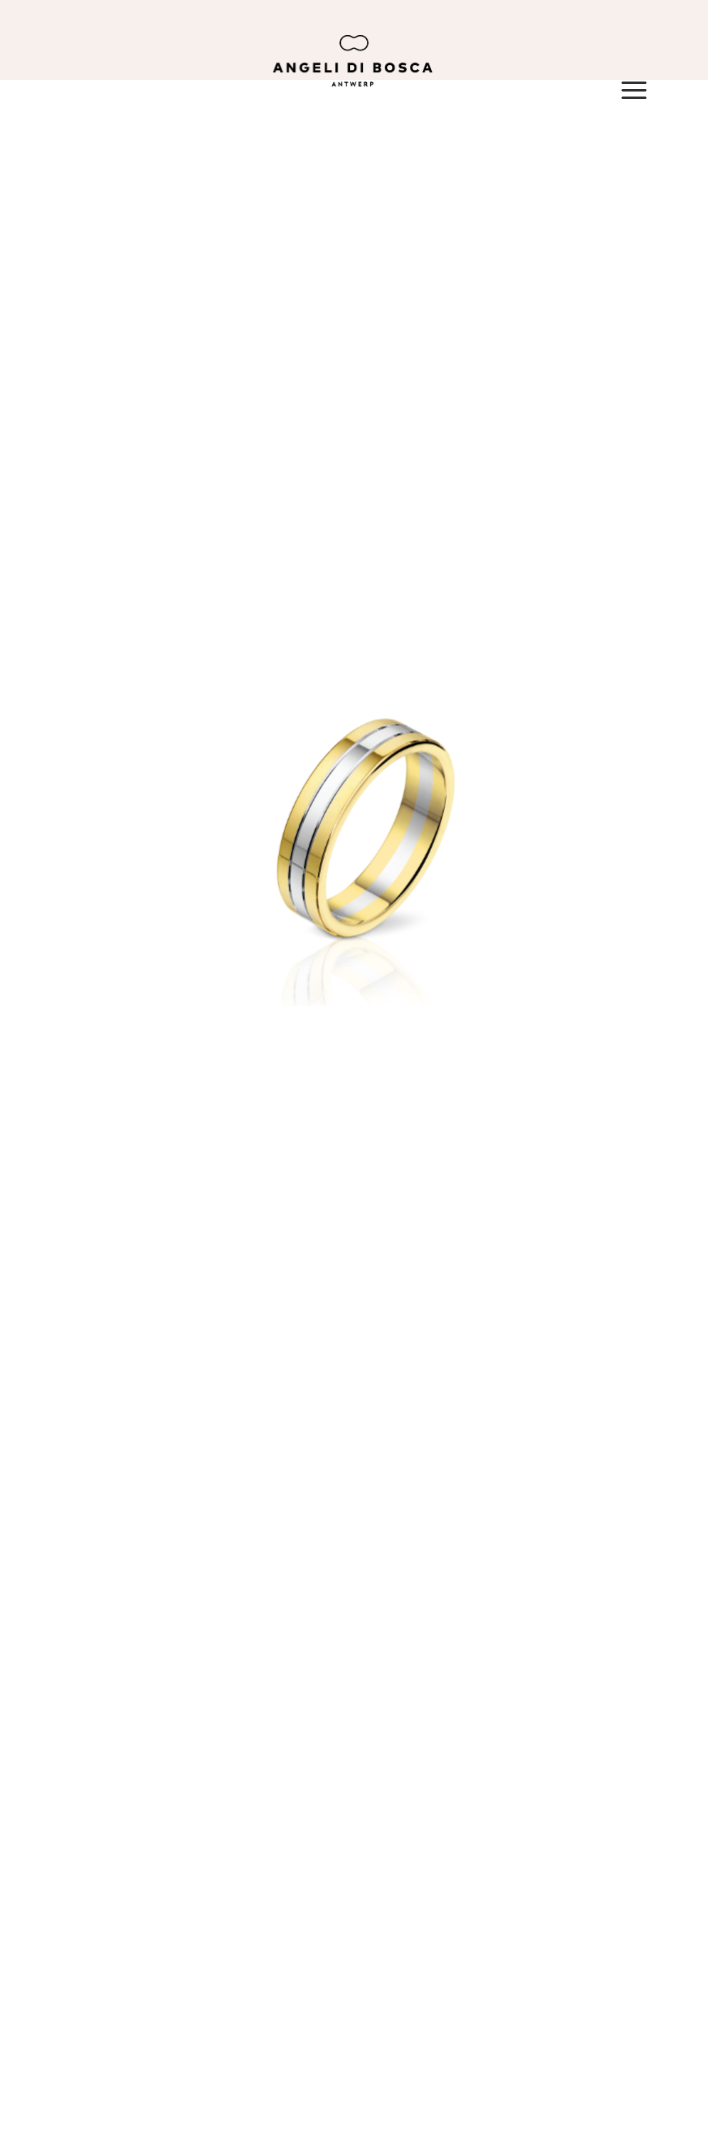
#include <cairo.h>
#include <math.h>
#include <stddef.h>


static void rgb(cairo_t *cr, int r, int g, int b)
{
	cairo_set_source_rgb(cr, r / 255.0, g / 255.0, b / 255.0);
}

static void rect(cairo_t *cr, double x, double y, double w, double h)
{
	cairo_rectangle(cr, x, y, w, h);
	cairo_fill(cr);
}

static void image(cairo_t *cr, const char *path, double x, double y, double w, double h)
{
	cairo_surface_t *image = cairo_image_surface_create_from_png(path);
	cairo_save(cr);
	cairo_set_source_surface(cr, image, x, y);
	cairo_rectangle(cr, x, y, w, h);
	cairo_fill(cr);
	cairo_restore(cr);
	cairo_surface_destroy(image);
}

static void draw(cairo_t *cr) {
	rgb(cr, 255, 255, 255);
	cairo_paint(cr);
	rgb(cr, 247, 240, 236);
	rect(cr, 0, 0, 708, 80);
	image(cr, "image0.png", 272, 35, 161, 52);
	image(cr, "image1.png", 621, 81, 26, 18);
	image(cr, "image2.png", 276, 718, 179, 288);
}

int main(void) {
	cairo_surface_t *surface = cairo_image_surface_create(CAIRO_FORMAT_RGB24, 708, 2148);
	cairo_t *cr = cairo_create(surface);
	cairo_font_options_t *options = cairo_font_options_create();
	cairo_font_options_set_hint_metrics(options, CAIRO_HINT_METRICS_OFF);
	cairo_font_options_set_hint_style(options, CAIRO_HINT_STYLE_NONE);
	cairo_set_font_options(cr, options);
	cairo_set_miter_limit(cr, 4);
	draw(cr);
	cairo_surface_write_to_png(surface, "render.png");
	cairo_font_options_destroy(options);
	cairo_destroy(cr);
	cairo_surface_destroy(surface);
	return 0;
}
